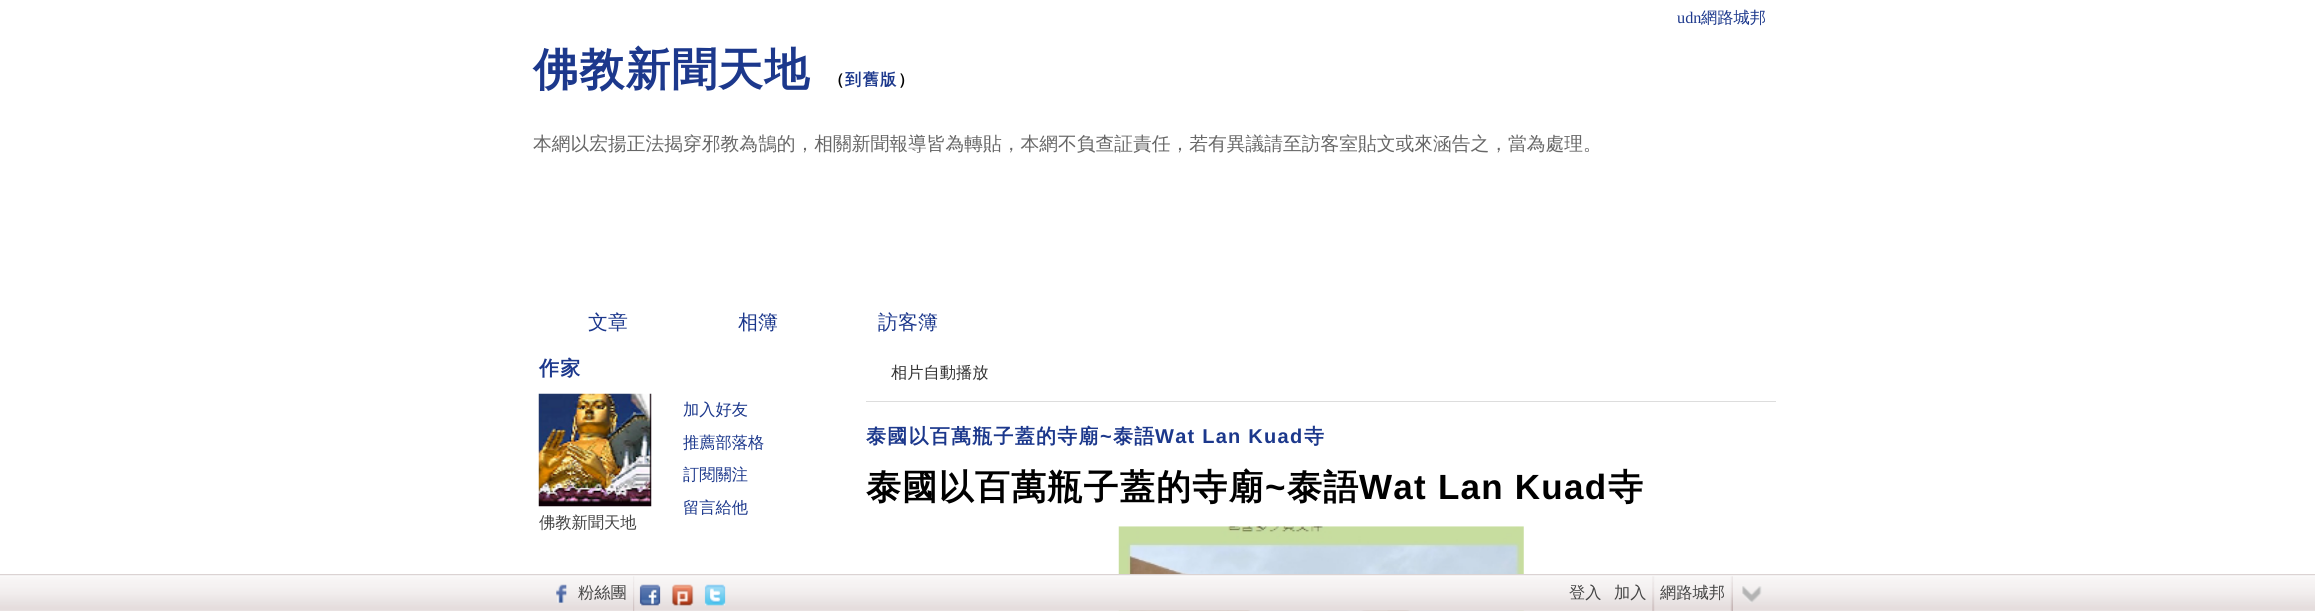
#include <cairo.h>
#include <math.h>
#include <stddef.h>


static void rgb(cairo_t *cr, int r, int g, int b)
{
	cairo_set_source_rgb(cr, r / 255.0, g / 255.0, b / 255.0);
}

static void face(cairo_t *cr, const char *family, double size, int italic, int bold)
{
	cairo_select_font_face(cr, family, italic ? CAIRO_FONT_SLANT_ITALIC : CAIRO_FONT_SLANT_NORMAL,
		bold ? CAIRO_FONT_WEIGHT_BOLD : CAIRO_FONT_WEIGHT_NORMAL);
	cairo_set_font_size(cr, size);
}

static void label(cairo_t *cr, double x, double y, const char *s)
{
	cairo_move_to(cr, x, y);
	cairo_show_text(cr, s);
}

static void tracked(cairo_t *cr, double x, double y, const char *s, double letter, double word)
{
	cairo_move_to(cr, x, y);
	while (*s) {
		char ch[5] = {0};
		int n = 0;
		do ch[n++] = *s++; while ((*s & 0xC0) == 0x80);
		cairo_show_text(cr, ch);
		cairo_rel_move_to(cr, letter + word * (*ch == ' '), 0);
	}
}

static void rect(cairo_t *cr, double x, double y, double w, double h)
{
	cairo_rectangle(cr, x, y, w, h);
	cairo_fill(cr);
}

static void image(cairo_t *cr, const char *path, double x, double y, double w, double h)
{
	cairo_surface_t *image = cairo_image_surface_create_from_png(path);
	cairo_save(cr);
	cairo_set_source_surface(cr, image, x, y);
	cairo_rectangle(cr, x, y, w, h);
	cairo_fill(cr);
	cairo_restore(cr);
	cairo_surface_destroy(image);
}

static void draw(cairo_t *cr) {
	rgb(cr, 255, 255, 255);
	cairo_paint(cr);
	face(cr, "Liberation Serif", 16.25, 0, 0);
	rgb(cr, 28, 56, 140);
	label(cr, 1677, 23, "udn");
	face(cr, "WenQuanYi Zen Hei Medium", 16.25, 0, 0);
	label(cr, 1701, 23, "網路城邦");
	face(cr, "WenQuanYi Zen Hei", 45, 0, 1);
	tracked(cr, 533, 85, "佛教新聞天地", 1.25, 0);
	face(cr, "WenQuanYi Zen Hei", 16.25, 0, 1);
	rgb(cr, 0, 0, 0);
	tracked(cr, 828, 85, "（", 1.25, 0);
	rgb(cr, 28, 56, 140);
	tracked(cr, 845, 85, "到舊版", 1.25, 0);
	rgb(cr, 0, 0, 0);
	tracked(cr, 898, 85, "）", 1.25, 0);
	face(cr, "WenQuanYi Zen Hei Medium", 18.75, 0, 0);
	rgb(cr, 102, 102, 102);
	label(cr, 533, 150, "本網以宏揚正法揭穿邪教為鵠的，相關新聞報導皆為轉貼，本網不負查証責任，若有異議請至訪客室貼文或來涵告之，當為處理。");
	face(cr, "WenQuanYi Zen Hei Medium", 20, 0, 0);
	rgb(cr, 28, 56, 140);
	label(cr, 588, 329, "文章");
	label(cr, 738, 329, "相簿");
	label(cr, 878, 329, "訪客簿");
	face(cr, "WenQuanYi Zen Hei", 20, 0, 1);
	tracked(cr, 539, 375, "作家", 1.25, 0);
	face(cr, "WenQuanYi Zen Hei Medium", 16.25, 0, 0);
	label(cr, 683, 415, "加入好友");
	label(cr, 683, 448, "推薦部落格");
	label(cr, 683, 480, "訂閱關注");
	label(cr, 683, 513, "留言給他");
	image(cr, "image0.png", 538, 393, 114, 114);
	rgb(cr, 68, 68, 68);
	label(cr, 539, 528, "佛教新聞天地");
	rgb(cr, 221, 221, 221);
	rect(cr, 866, 401, 910, 1);
	rgb(cr, 51, 51, 51);
	label(cr, 891, 378, "相片自動播放");
	face(cr, "WenQuanYi Zen Hei", 20, 0, 1);
	rgb(cr, 28, 56, 140);
	tracked(cr, 866, 443, "泰國以百萬瓶子蓋的寺廟", 1.25, 0);
	face(cr, "Liberation Sans", 20, 0, 1);
	tracked(cr, 1100, 443, "~", 1.25, 0);
	face(cr, "WenQuanYi Zen Hei", 20, 0, 1);
	tracked(cr, 1113, 443, "泰語", 1.25, 0);
	face(cr, "Liberation Sans", 20, 0, 1);
	tracked(cr, 1155, 443, "Wat Lan Kuad", 1.25, 0);
	face(cr, "WenQuanYi Zen Hei", 20, 0, 1);
	tracked(cr, 1304, 443, "寺", 1.25, 0);
	face(cr, "WenQuanYi Zen Hei", 35, 0, 1);
	rgb(cr, 0, 0, 0);
	tracked(cr, 866, 499, "泰國以百萬瓶子蓋的寺廟", 1.25, 0);
	face(cr, "Liberation Sans", 35, 0, 1);
	tracked(cr, 1265, 499, "~", 1.25, 0);
	face(cr, "WenQuanYi Zen Hei", 35, 0, 1);
	tracked(cr, 1287, 499, "泰語", 1.25, 0);
	face(cr, "Liberation Sans", 35, 0, 1);
	tracked(cr, 1359, 499, "Wat Lan Kuad", 1.25, 0);
	face(cr, "WenQuanYi Zen Hei", 35, 0, 1);
	tracked(cr, 1608, 499, "寺", 1.25, 0);
	image(cr, "image1.png", 1118, 526, 406, 85);
	image(cr, "image2.png", 0, 574, 2315, 37);
	image(cr, "image3.png", 556, 584, 11, 19);
	face(cr, "WenQuanYi Zen Hei Medium", 16.25, 0, 0);
	rgb(cr, 68, 68, 68);
	label(cr, 578, 598, "粉絲團");
	image(cr, "image4.png", 633, 576, 2, 35);
	image(cr, "image5.png", 639, 584, 22, 22);
	image(cr, "image6.png", 671, 584, 23, 22);
	image(cr, "image7.png", 704, 584, 22, 22);
	label(cr, 1569, 598, "登入");
	label(cr, 1614, 598, "加入");
	image(cr, "image8.png", 1652, 576, 3, 35);
	label(cr, 1660, 598, "網路城邦");
	image(cr, "image9.png", 1730, 576, 3, 35);
	image(cr, "image10.png", 1742, 586, 20, 17);
}

int main(void) {
	cairo_surface_t *surface = cairo_image_surface_create(CAIRO_FORMAT_RGB24, 2315, 611);
	cairo_t *cr = cairo_create(surface);
	cairo_font_options_t *options = cairo_font_options_create();
	cairo_font_options_set_hint_metrics(options, CAIRO_HINT_METRICS_OFF);
	cairo_font_options_set_hint_style(options, CAIRO_HINT_STYLE_NONE);
	cairo_set_font_options(cr, options);
	cairo_set_miter_limit(cr, 4);
	draw(cr);
	cairo_surface_write_to_png(surface, "render.png");
	cairo_font_options_destroy(options);
	cairo_destroy(cr);
	cairo_surface_destroy(surface);
	return 0;
}
